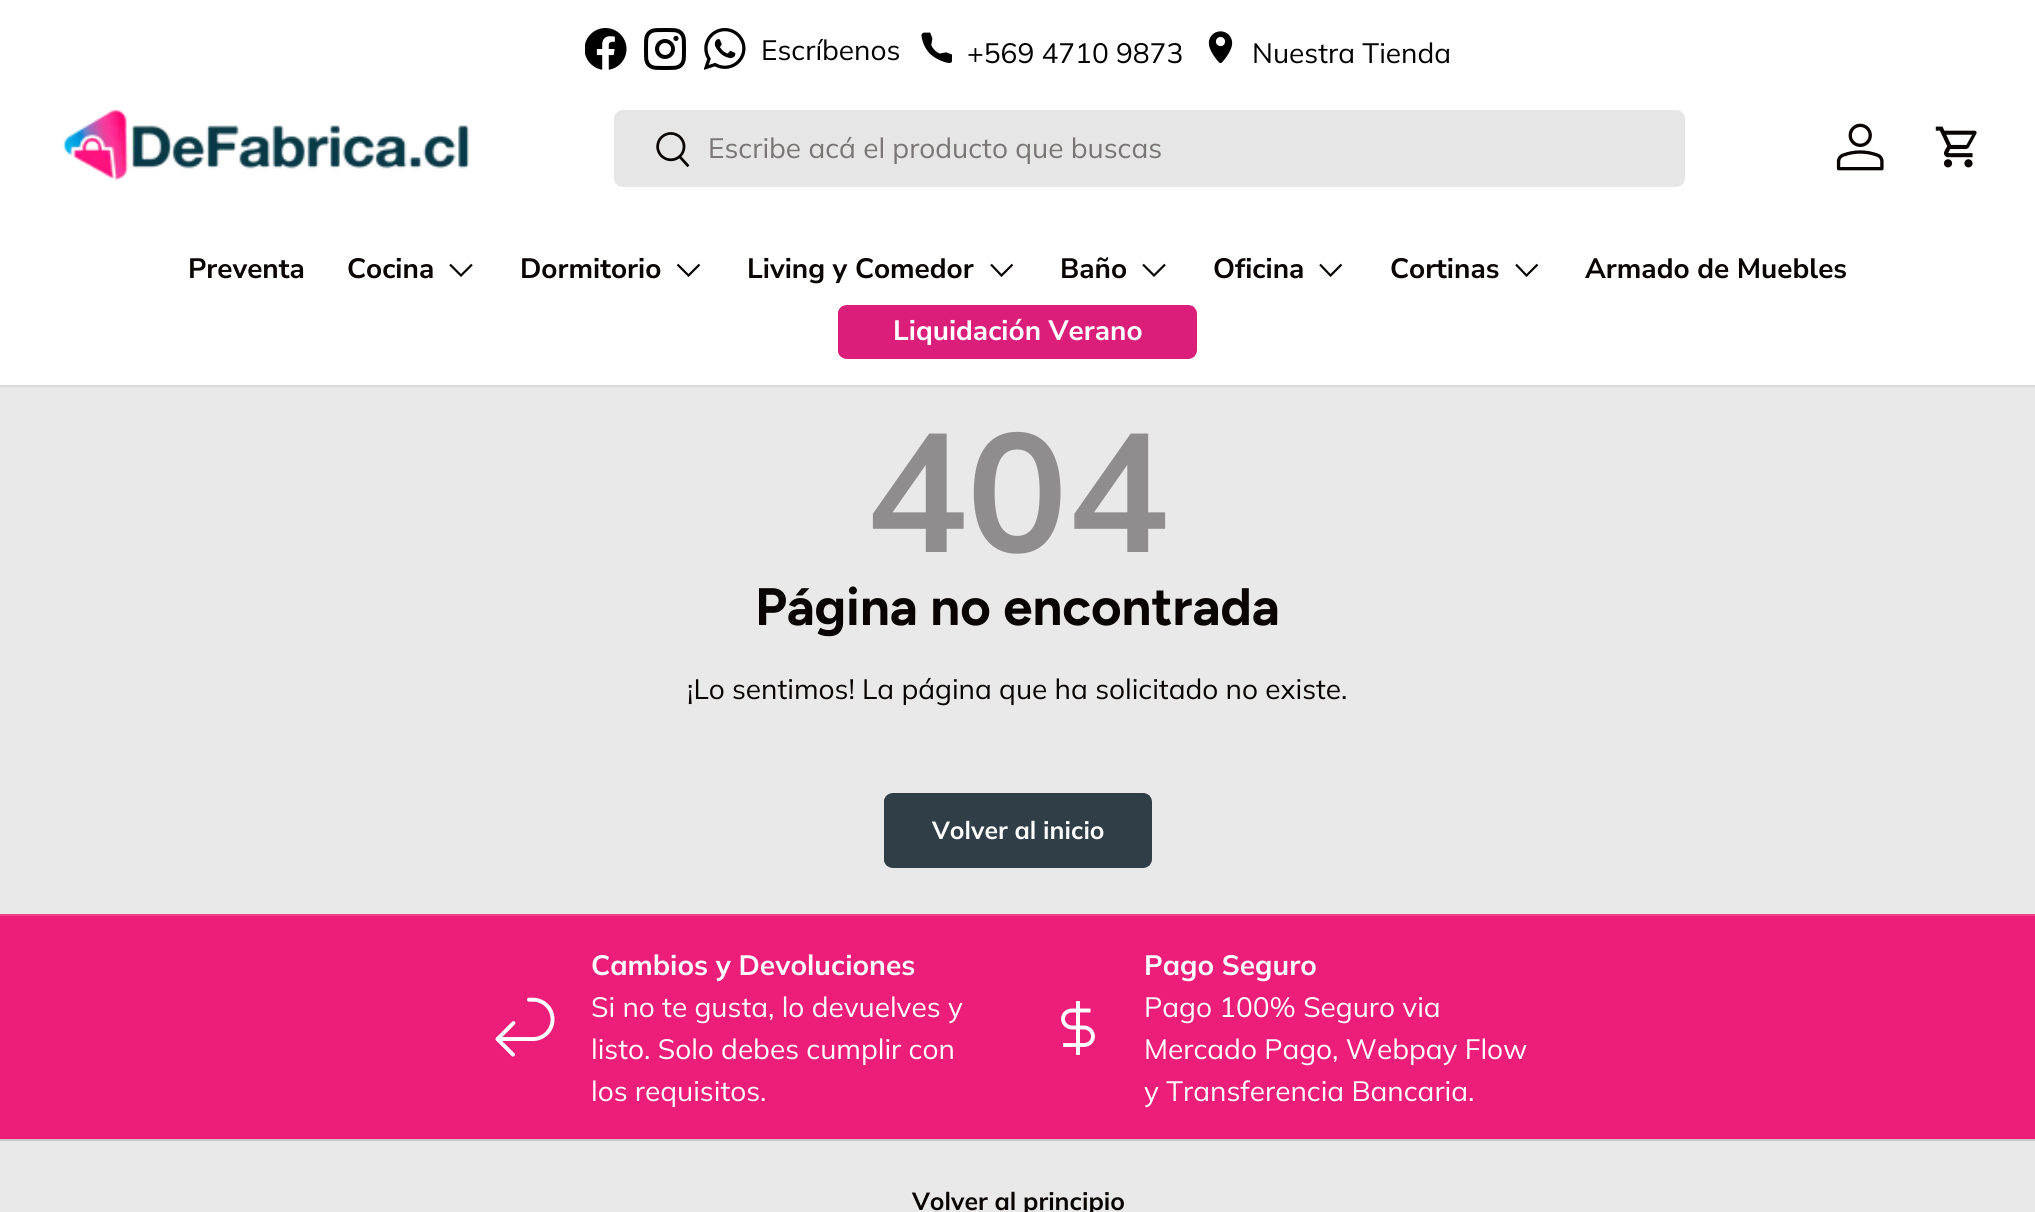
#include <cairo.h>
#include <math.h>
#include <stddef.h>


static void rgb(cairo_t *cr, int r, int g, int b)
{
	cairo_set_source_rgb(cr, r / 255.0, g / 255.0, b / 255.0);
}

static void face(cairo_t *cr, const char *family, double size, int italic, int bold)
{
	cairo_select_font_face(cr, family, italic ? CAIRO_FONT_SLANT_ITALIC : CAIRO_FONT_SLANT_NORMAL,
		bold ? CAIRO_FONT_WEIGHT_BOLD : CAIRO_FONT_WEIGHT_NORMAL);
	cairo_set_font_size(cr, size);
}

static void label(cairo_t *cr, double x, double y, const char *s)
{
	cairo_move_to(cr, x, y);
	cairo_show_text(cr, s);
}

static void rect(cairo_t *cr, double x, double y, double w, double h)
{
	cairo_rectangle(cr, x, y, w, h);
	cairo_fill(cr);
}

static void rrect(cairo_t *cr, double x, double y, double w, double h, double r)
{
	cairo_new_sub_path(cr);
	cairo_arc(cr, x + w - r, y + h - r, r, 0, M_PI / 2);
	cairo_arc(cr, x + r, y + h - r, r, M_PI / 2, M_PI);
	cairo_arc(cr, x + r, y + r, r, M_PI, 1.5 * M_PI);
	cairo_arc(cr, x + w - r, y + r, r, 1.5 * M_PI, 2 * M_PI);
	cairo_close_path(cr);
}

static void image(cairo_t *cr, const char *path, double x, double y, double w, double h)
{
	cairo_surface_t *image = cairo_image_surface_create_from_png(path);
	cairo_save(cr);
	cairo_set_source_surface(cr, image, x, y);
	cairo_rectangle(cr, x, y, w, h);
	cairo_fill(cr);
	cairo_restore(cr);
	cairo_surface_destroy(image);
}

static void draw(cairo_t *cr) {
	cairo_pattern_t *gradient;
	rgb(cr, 233, 233, 233);
	cairo_paint(cr);
	rgb(cr, 255, 255, 255);
	rect(cr, 0, 0, 2035, 385);
	rgb(cr, 218, 217, 217);
	rect(cr, 0, 385, 2035, 2);
	image(cr, "image0.png", 585, 28, 42, 42);
	image(cr, "image1.png", 644, 28, 42, 42);
	image(cr, "image2.png", 704, 28, 42, 42);
	face(cr, "Muli", 28, 0, 0);
	rgb(cr, 0, 0, 0);
	label(cr, 761, 60, "Escríbenos");
	image(cr, "image3.png", 921, 32, 31, 31);
	label(cr, 967, 63, "+569 4710 9873");
	image(cr, "image4.png", 1208, 31, 25, 32);
	label(cr, 1252, 63, "Nuestra Tienda");
	image(cr, "image5.png", 62, 109, 408, 72);
	rgb(cr, 230, 230, 230);
	rrect(cr, 614, 110, 1071, 77, 9);
	cairo_fill(cr);
	image(cr, "image6.png", 656, 132, 34, 36);
	rgb(cr, 120, 117, 116);
	label(cr, 708, 158, "Escribe acá el producto que buscas");
	image(cr, "image7.png", 1836, 123, 48, 48);
	image(cr, "image8.png", 1935, 126, 42, 42);
	face(cr, "Nunito Sans", 28, 0, 1);
	rgb(cr, 9, 3, 2);
	label(cr, 188, 278, "Preventa");
	label(cr, 347, 278, "Cocina");
	cairo_new_path(cr);
	cairo_move_to(cr, 472, 264.5);
	cairo_line_to(cr, 461, 275.5);
	cairo_line_to(cr, 450, 264.5);
	cairo_set_line_width(cr, 2.2);
	cairo_stroke(cr);
	label(cr, 520, 278, "Dormitorio");
	cairo_new_path(cr);
	cairo_move_to(cr, 699.5, 264.5);
	cairo_line_to(cr, 688.5, 275.5);
	cairo_line_to(cr, 677.5, 264.5);
	cairo_stroke(cr);
	label(cr, 747, 278, "Living y Comedor");
	cairo_new_path(cr);
	cairo_move_to(cr, 1012.5, 264.5);
	cairo_line_to(cr, 1001.5, 275.5);
	cairo_line_to(cr, 991, 264.5);
	cairo_stroke(cr);
	label(cr, 1060, 278, "Baño");
	cairo_new_path(cr);
	cairo_move_to(cr, 1165, 264.5);
	cairo_line_to(cr, 1154, 275.5);
	cairo_line_to(cr, 1143, 264.5);
	cairo_stroke(cr);
	label(cr, 1213, 278, "Oficina");
	cairo_new_path(cr);
	cairo_move_to(cr, 1341.5, 264.5);
	cairo_line_to(cr, 1330.5, 275.5);
	cairo_line_to(cr, 1320, 264.5);
	cairo_stroke(cr);
	label(cr, 1390, 278, "Cortinas");
	cairo_new_path(cr);
	cairo_move_to(cr, 1537.5, 264.5);
	cairo_line_to(cr, 1526.5, 275.5);
	cairo_line_to(cr, 1516, 264.5);
	cairo_stroke(cr);
	label(cr, 1585, 278, "Armado de Muebles");
	cairo_save(cr);
	rrect(cr, 838, 305, 359, 54, 9);
	cairo_clip(cr);
	gradient = cairo_pattern_create_linear(155, 205, 1170, 458);
	cairo_pattern_add_color_stop_rgba(gradient, 0.6, 0.886, 0.302, 0.584, 1);
	cairo_pattern_add_color_stop_rgba(gradient, 0.6, 0.859, 0.118, 0.475, 1);
	cairo_pattern_add_color_stop_rgba(gradient, 1, 0.859, 0.118, 0.475, 1);
	cairo_set_source(cr, gradient);
	cairo_pattern_destroy(gradient);
	rect(cr, 838, 306, 357, 51);
	cairo_restore(cr);
	rrect(cr, 839, 306, 357, 52, 8);
	rgb(cr, 219, 30, 121);
	cairo_set_line_width(cr, 2);
	cairo_stroke(cr);
	rgb(cr, 255, 255, 255);
	label(cr, 893, 340, "Liquidación Verano");
	face(cr, "Muli", 168, 0, 1);
	rgb(cr, 143, 141, 141);
	label(cr, 866, 552, "404");
	face(cr, "Figtree", 52.6, 0, 1);
	rgb(cr, 9, 3, 2);
	label(cr, 755, 625, "Página no encontrada");
	face(cr, "Muli", 28, 0, 0);
	label(cr, 687, 699, "¡Lo sentimos! La página que ha solicitado no existe.");
	cairo_save(cr);
	rrect(cr, 884, 793, 268, 75, 9);
	cairo_clip(cr);
	gradient = cairo_pattern_create_linear(372, 735, 1135, 926);
	cairo_pattern_add_color_stop_rgba(gradient, 0.6, 0.337, 0.388, 0.424, 1);
	cairo_pattern_add_color_stop_rgba(gradient, 0.6, 0.188, 0.243, 0.282, 1);
	cairo_pattern_add_color_stop_rgba(gradient, 1, 0.188, 0.243, 0.282, 1);
	cairo_set_source(cr, gradient);
	cairo_pattern_destroy(gradient);
	rect(cr, 884, 795, 266, 71);
	cairo_restore(cr);
	rrect(cr, 885, 794, 266, 73, 8);
	rgb(cr, 48, 62, 72);
	cairo_stroke(cr);
	face(cr, "Muli", 24.75, 0, 1);
	rgb(cr, 255, 255, 255);
	label(cr, 932, 839, "Volver al inicio");
	rgb(cr, 237, 30, 121);
	rect(cr, 0, 916, 2035, 223);
	rgb(cr, 240, 64, 141);
	rect(cr, 0, 914, 2035, 2);
	image(cr, "image9.png", 495, 997, 60, 60);
	face(cr, "Muli", 28, 0, 1);
	rgb(cr, 255, 255, 255);
	label(cr, 591, 975, "Cambios y Devoluciones");
	face(cr, "Muli", 28, 0, 0);
	label(cr, 591, 1017, "Si no te gusta, lo devuelves y");
	label(cr, 591, 1059, "listo. Solo debes cumplir con");
	label(cr, 591, 1101, "los requisitos.");
	rgb(cr, 255, 249, 252);
	rect(cr, 1076, 1001, 4, 54);
	cairo_new_path(cr);
	cairo_move_to(cr, 1090.5, 1010.5);
	cairo_line_to(cr, 1072, 1010.5);
	cairo_curve_to(cr, 1067, 1010.5, 1063, 1014, 1063, 1019);
	cairo_curve_to(cr, 1063, 1023.5, 1067, 1027.5, 1072, 1027.5);
	cairo_line_to(cr, 1084, 1027.5);
	cairo_curve_to(cr, 1089, 1027.5, 1093, 1031.5, 1093, 1036.5);
	cairo_curve_to(cr, 1093, 1041, 1089, 1045, 1084, 1045);
	cairo_line_to(cr, 1063, 1045);
	rgb(cr, 255, 255, 255);
	cairo_set_line_width(cr, 3.9);
	cairo_stroke(cr);
	face(cr, "Muli", 28, 0, 1);
	label(cr, 1144, 975, "Pago Seguro");
	face(cr, "Muli", 28, 0, 0);
	label(cr, 1144, 1017, "Pago 100% Seguro via");
	label(cr, 1144, 1059, "Mercado Pago, Webpay Flow");
	label(cr, 1144, 1101, "y Transferencia Bancaria.");
	rgb(cr, 199, 199, 198);
	rect(cr, 0, 1139, 2035, 2);
	face(cr, "Muli", 24.75, 0, 1);
	rgb(cr, 9, 3, 2);
	label(cr, 912, 1210, "Volver al principio");
}

int main(void) {
	cairo_surface_t *surface = cairo_image_surface_create(CAIRO_FORMAT_RGB24, 2035, 1212);
	cairo_t *cr = cairo_create(surface);
	cairo_font_options_t *options = cairo_font_options_create();
	cairo_font_options_set_hint_metrics(options, CAIRO_HINT_METRICS_OFF);
	cairo_font_options_set_hint_style(options, CAIRO_HINT_STYLE_NONE);
	cairo_set_font_options(cr, options);
	cairo_set_miter_limit(cr, 4);
	draw(cr);
	cairo_surface_write_to_png(surface, "render.png");
	cairo_font_options_destroy(options);
	cairo_destroy(cr);
	cairo_surface_destroy(surface);
	return 0;
}
